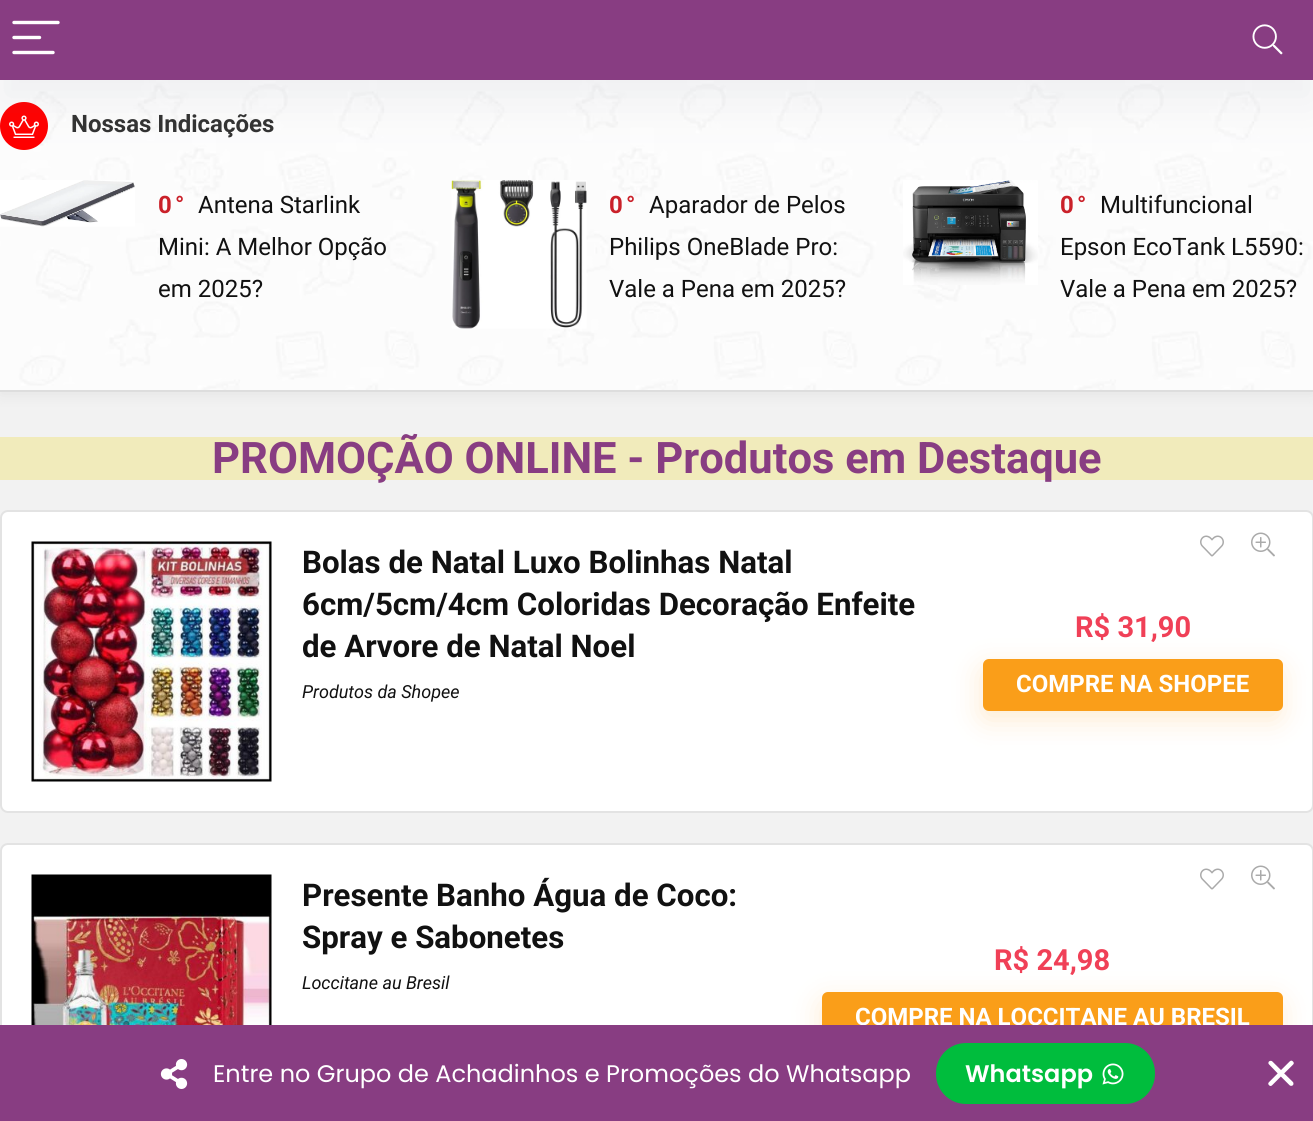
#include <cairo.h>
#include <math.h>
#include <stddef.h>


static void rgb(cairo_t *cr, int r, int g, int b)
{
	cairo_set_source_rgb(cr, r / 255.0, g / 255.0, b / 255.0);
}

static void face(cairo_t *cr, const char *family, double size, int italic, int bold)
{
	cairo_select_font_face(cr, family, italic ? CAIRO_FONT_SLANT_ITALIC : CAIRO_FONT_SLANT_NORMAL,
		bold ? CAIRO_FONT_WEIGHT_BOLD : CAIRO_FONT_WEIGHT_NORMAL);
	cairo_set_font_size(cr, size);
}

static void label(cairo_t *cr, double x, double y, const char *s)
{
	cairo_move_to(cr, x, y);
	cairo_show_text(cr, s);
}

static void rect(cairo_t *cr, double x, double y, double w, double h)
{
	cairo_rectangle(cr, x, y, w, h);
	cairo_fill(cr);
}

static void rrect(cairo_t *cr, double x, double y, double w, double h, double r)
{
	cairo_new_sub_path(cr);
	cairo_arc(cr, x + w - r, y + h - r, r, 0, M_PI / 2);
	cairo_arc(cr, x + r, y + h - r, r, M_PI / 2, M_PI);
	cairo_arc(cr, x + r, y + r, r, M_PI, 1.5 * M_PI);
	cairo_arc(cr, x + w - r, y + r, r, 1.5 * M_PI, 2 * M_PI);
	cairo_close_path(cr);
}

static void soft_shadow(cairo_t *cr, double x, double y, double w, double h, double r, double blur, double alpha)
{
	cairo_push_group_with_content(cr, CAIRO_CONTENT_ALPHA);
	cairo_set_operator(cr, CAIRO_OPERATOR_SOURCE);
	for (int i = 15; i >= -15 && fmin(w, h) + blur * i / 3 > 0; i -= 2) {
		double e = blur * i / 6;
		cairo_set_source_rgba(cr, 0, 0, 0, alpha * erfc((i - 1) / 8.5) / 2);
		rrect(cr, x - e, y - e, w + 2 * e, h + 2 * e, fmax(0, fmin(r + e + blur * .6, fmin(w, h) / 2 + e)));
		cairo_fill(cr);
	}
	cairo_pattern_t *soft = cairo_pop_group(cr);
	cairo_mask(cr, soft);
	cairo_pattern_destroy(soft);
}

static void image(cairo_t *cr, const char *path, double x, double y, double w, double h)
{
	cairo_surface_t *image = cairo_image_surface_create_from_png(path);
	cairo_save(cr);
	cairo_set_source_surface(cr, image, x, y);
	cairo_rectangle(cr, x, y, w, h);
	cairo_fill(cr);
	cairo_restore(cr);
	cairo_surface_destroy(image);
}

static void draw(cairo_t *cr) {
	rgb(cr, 242, 242, 242);
	cairo_paint(cr);
	rgb(cr, 0, 0, 0);
	soft_shadow(cr, 0, 84, 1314, 312, 0, 7.5, 0.05);
	image(cr, "image1.png", 0, 80, 1313, 310);
	rgb(cr, 255, 0, 0);
	cairo_arc(cr, 24, 126, 24, 0, 2 * M_PI);
	cairo_fill(cr);
	image(cr, "image2.png", 9, 115, 30, 23);
	rgb(cr, 119, 123, 146);
	soft_shadow(cr, 0, 23, 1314, 79, 0, 22.5, 0.1);
	rgb(cr, 136, 61, 130);
	rect(cr, 0, 0, 1313, 80);
	cairo_new_path(cr);
	cairo_move_to(cr, 14, 22.5);
	cairo_line_to(cr, 58, 22.5);
	cairo_move_to(cr, 14, 37.5);
	cairo_line_to(cr, 39.5, 37.5);
	cairo_move_to(cr, 14, 52.5);
	cairo_line_to(cr, 53, 52.5);
	rgb(cr, 255, 255, 255);
	cairo_set_line_width(cr, 3.4);
	cairo_set_line_cap(cr, CAIRO_LINE_CAP_ROUND);
	cairo_stroke(cr);
	image(cr, "image0.png", 1252, 24, 31, 31);
	rgb(cr, 221, 221, 221);
	rect(cr, 0, 390, 1313, 2);
	face(cr, "Roboto", 24, 0, 1);
	rgb(cr, 51, 51, 51);
	label(cr, 71, 132, "Nossas Indicações");
	image(cr, "image3.png", 0, 180, 135, 47);
	rgb(cr, 202, 33, 42);
	label(cr, 158, 213, "0");
	label(cr, 175, 213, "°");
	face(cr, "Roboto", 24, 0, 0);
	rgb(cr, 17, 17, 17);
	label(cr, 198, 213, "Antena Starlink");
	label(cr, 158, 255, "Mini: A Melhor Opção");
	label(cr, 158, 297, "em 2025?");
	image(cr, "image4.png", 451, 180, 136, 149);
	face(cr, "Roboto", 24, 0, 1);
	rgb(cr, 202, 33, 42);
	label(cr, 609, 213, "0");
	label(cr, 626, 213, "°");
	face(cr, "Roboto", 24, 0, 0);
	rgb(cr, 17, 17, 17);
	label(cr, 649, 213, "Aparador de Pelos");
	label(cr, 609, 255, "Philips OneBlade Pro:");
	label(cr, 609, 297, "Vale a Pena em 2025?");
	image(cr, "image5.png", 903, 180, 135, 105);
	face(cr, "Roboto", 24, 0, 1);
	rgb(cr, 202, 33, 42);
	label(cr, 1060, 213, "0");
	label(cr, 1077, 213, "°");
	face(cr, "Roboto", 24, 0, 0);
	rgb(cr, 17, 17, 17);
	label(cr, 1100, 213, "Multifuncional");
	label(cr, 1060, 255, "Epson EcoTank L5590:");
	label(cr, 1060, 297, "Vale a Pena em 2025?");
	rgb(cr, 241, 235, 187);
	rect(cr, 0, 437, 1313, 43);
	face(cr, "Roboto", 43.5, 0, 1);
	rgb(cr, 136, 61, 130);
	label(cr, 212, 473, "PROMOÇÃO ONLINE - Produtos em Destaque");
	rgb(cr, 255, 255, 255);
	rrect(cr, 1, 511, 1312, 301, 7);
	cairo_fill_preserve(cr);
	rgb(cr, 227, 227, 227);
	cairo_set_line_width(cr, 2);
	cairo_set_line_cap(cr, CAIRO_LINE_CAP_BUTT);
	cairo_stroke(cr);
	image(cr, "image6.png", 1200, 535, 24, 22);
	image(cr, "image7.png", 1251, 532, 24, 25);
	image(cr, "image8.png", 31, 541, 241, 241);
	face(cr, "Roboto", 31.25, 0, 1);
	rgb(cr, 17, 17, 17);
	label(cr, 302, 573, "Bolas de Natal Luxo Bolinhas Natal");
	label(cr, 302, 615, "6cm/5cm/4cm Coloridas Decoração Enfeite");
	label(cr, 302, 657, "de Arvore de Natal Noel");
	face(cr, "Roboto", 18, 1, 0);
	label(cr, 302, 698, "Produtos da Shopee");
	face(cr, "Roboto", 29, 0, 1);
	rgb(cr, 240, 64, 87);
	label(cr, 1075, 637, "R$ 31,90");
	rgb(cr, 250, 158, 25);
	soft_shadow(cr, 981, 668, 300, 52, 6, 14, 0.2);
	rgb(cr, 250, 158, 25);
	rrect(cr, 983, 659, 300, 52, 6);
	cairo_fill(cr);
	face(cr, "Roboto", 24, 0, 1);
	rgb(cr, 255, 255, 255);
	label(cr, 1016, 692, "COMPRE NA SHOPEE");
	rrect(cr, 1, 844, 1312, 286, 7);
	cairo_fill_preserve(cr);
	rgb(cr, 227, 227, 227);
	cairo_stroke(cr);
	image(cr, "image6.png", 1200, 868, 24, 22);
	image(cr, "image7.png", 1251, 865, 24, 25);
	image(cr, "image9.png", 31, 874, 241, 151);
	face(cr, "Roboto", 31.25, 0, 1);
	rgb(cr, 17, 17, 17);
	label(cr, 302, 906, "Presente Banho Água de Coco:");
	label(cr, 302, 948, "Spray e Sabonetes");
	face(cr, "Roboto", 18, 1, 0);
	label(cr, 302, 989, "Loccitane au Bresil");
	face(cr, "Roboto", 29, 0, 1);
	rgb(cr, 240, 64, 87);
	label(cr, 994, 970, "R$ 24,98");
	rgb(cr, 250, 158, 25);
	soft_shadow(cr, 821, 1001, 460, 52, 6, 14, 0.2);
	rgb(cr, 250, 158, 25);
	rrect(cr, 822, 992, 461, 52, 6);
	cairo_fill(cr);
	face(cr, "Roboto", 24, 0, 1);
	rgb(cr, 255, 255, 255);
	label(cr, 855, 1025, "COMPRE NA LOCCITANE AU BRESIL");
	rgb(cr, 136, 61, 130);
	rect(cr, 0, 1025, 1313, 96);
	image(cr, "image10.png", 160, 1059, 28, 30);
	face(cr, "Poppins", 24, 0, 0);
	rgb(cr, 255, 255, 255);
	label(cr, 213, 1082, "Entre no Grupo de Achadinhos e Promoções do Whatsapp");
	rgb(cr, 0, 189, 61);
	rrect(cr, 936, 1043, 219, 61, 30);
	cairo_fill(cr);
	face(cr, "Poppins SemiBold", 24, 0, 0);
	rgb(cr, 255, 255, 255);
	label(cr, 965, 1082, "Whatsapp");
	image(cr, "image11.png", 1102, 1063, 22, 22);
	image(cr, "image12.png", 1268, 1060, 26, 26);
}

int main(void) {
	cairo_surface_t *surface = cairo_image_surface_create(CAIRO_FORMAT_RGB24, 1313, 1121);
	cairo_t *cr = cairo_create(surface);
	cairo_font_options_t *options = cairo_font_options_create();
	cairo_font_options_set_hint_metrics(options, CAIRO_HINT_METRICS_OFF);
	cairo_font_options_set_hint_style(options, CAIRO_HINT_STYLE_NONE);
	cairo_set_font_options(cr, options);
	cairo_set_miter_limit(cr, 4);
	draw(cr);
	cairo_surface_write_to_png(surface, "render.png");
	cairo_font_options_destroy(options);
	cairo_destroy(cr);
	cairo_surface_destroy(surface);
	return 0;
}
